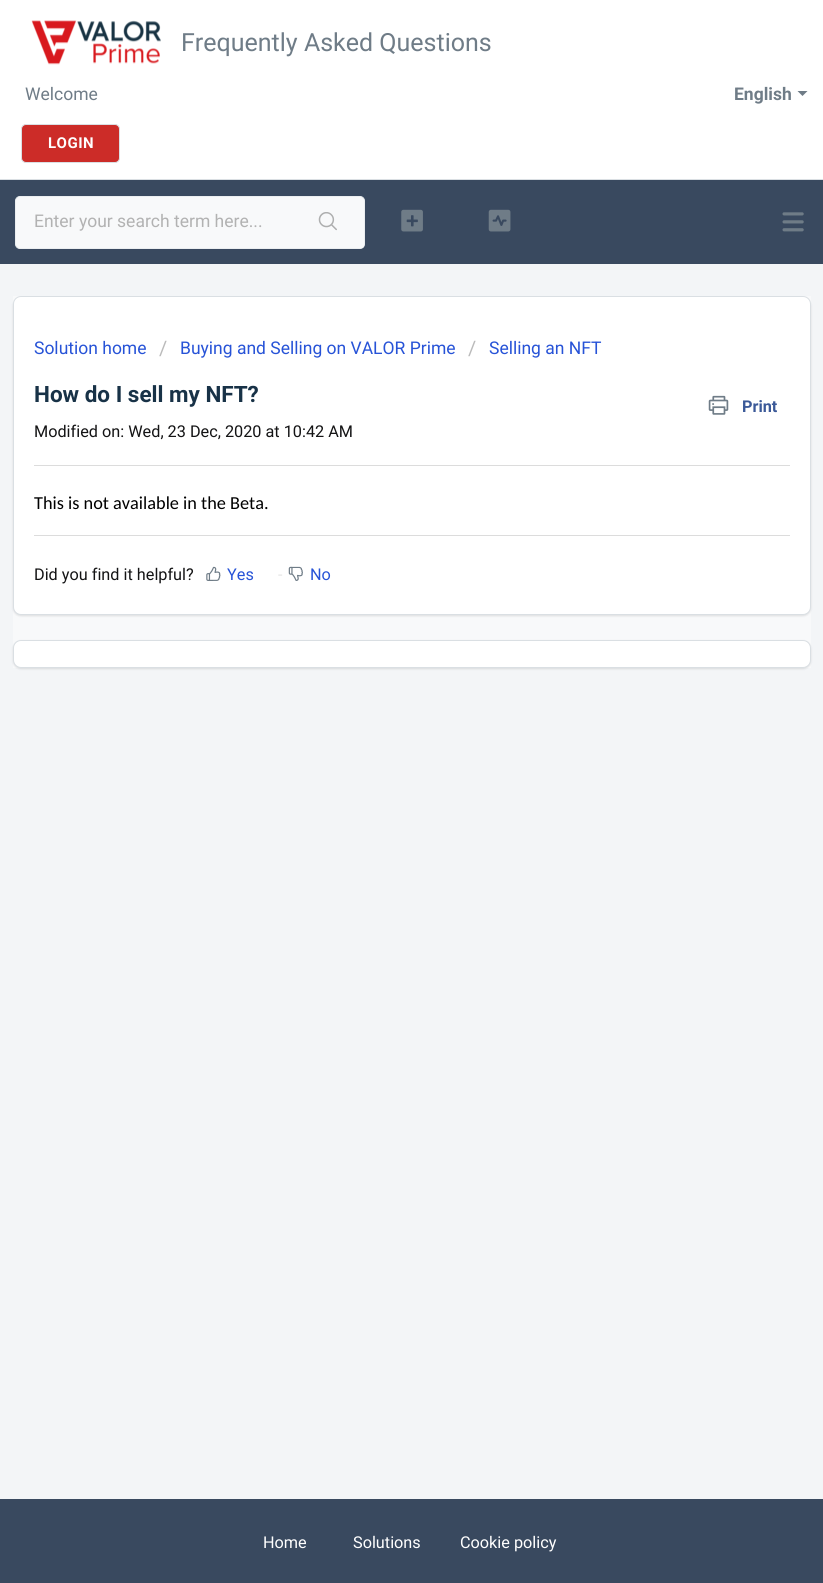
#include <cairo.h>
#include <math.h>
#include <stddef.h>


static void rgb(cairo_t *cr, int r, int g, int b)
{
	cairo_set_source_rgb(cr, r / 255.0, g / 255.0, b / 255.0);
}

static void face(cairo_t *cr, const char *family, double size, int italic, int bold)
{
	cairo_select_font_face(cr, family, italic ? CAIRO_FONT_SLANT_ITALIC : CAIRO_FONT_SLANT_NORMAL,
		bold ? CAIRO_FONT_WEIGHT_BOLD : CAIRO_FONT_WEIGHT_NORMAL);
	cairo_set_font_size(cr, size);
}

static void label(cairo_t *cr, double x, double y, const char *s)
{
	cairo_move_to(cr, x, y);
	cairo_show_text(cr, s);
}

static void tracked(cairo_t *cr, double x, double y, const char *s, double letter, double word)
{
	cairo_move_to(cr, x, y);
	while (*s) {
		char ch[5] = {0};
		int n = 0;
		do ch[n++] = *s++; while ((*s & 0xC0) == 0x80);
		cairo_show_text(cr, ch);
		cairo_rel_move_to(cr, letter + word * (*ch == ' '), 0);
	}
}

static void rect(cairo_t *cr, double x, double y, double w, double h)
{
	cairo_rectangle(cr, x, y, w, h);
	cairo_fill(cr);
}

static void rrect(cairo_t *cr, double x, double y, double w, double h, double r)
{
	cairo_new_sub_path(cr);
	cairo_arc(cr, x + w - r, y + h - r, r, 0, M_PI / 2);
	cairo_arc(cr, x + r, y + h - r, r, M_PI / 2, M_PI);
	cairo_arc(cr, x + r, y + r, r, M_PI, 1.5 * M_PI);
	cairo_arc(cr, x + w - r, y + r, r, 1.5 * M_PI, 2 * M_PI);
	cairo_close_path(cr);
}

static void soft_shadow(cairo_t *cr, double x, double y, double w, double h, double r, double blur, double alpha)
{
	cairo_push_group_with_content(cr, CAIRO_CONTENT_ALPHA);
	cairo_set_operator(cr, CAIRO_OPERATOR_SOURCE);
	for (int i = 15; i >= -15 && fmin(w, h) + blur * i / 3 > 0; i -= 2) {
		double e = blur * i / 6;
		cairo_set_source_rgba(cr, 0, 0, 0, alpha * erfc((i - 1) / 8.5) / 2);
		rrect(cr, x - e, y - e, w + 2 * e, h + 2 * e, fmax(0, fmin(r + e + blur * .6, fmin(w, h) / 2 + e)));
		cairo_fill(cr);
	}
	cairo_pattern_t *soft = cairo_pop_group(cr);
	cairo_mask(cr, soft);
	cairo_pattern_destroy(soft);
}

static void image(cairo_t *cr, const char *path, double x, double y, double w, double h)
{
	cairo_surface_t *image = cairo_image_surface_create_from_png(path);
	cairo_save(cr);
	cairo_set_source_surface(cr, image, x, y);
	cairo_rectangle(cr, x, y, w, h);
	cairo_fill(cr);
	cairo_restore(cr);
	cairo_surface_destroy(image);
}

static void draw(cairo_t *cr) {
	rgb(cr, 243, 245, 247);
	cairo_paint(cr);
	rgb(cr, 255, 255, 255);
	rect(cr, 0, 0, 823, 179);
	rgb(cr, 218, 223, 227);
	rect(cr, 0, 179, 823, 1);
	image(cr, "image0.png", 31, 20, 130, 45);
	face(cr, "Roboto", 25, 0, 0);
	rgb(cr, 111, 124, 135);
	label(cr, 181, 51, "Frequently Asked Questions");
	face(cr, "Roboto", 17.5, 0, 0);
	label(cr, 25, 100, "Welcome");
	face(cr, "Roboto", 17.5, 0, 1);
	label(cr, 734, 100, "English");
	cairo_new_path(cr);
	cairo_move_to(cr, 797.5, 91);
	cairo_line_to(cr, 807.5, 91);
	cairo_line_to(cr, 802.5, 96);
	cairo_close_path(cr);
	cairo_fill(cr);
	rgb(cr, 204, 44, 40);
	rrect(cr, 21.5, 124.5, 98, 38, 4.5);
	cairo_fill_preserve(cr);
	rgb(cr, 218, 223, 227);
	cairo_set_line_width(cr, 1);
	cairo_stroke(cr);
	face(cr, "Roboto", 15, 0, 1);
	rgb(cr, 255, 255, 255);
	tracked(cr, 48, 148, "LOGIN", 0.5, 0);
	rgb(cr, 57, 73, 95);
	rect(cr, 0, 180, 823, 84);
	image(cr, "image1.png", 782, 212, 22, 20);
	rgb(cr, 248, 249, 250);
	rrect(cr, 15.5, 196.5, 349, 52, 4.5);
	cairo_fill_preserve(cr);
	rgb(cr, 235, 238, 240);
	cairo_stroke(cr);
	face(cr, "Roboto", 17.5, 0, 0);
	rgb(cr, 178, 178, 178);
	label(cr, 34, 227, "Enter your search term here...");
	rgb(cr, 248, 249, 250);
	rrect(cr, 294, 198, 70, 50, 2.5);
	cairo_fill(cr);
	image(cr, "image2.png", 318, 212, 19, 19);
	image(cr, "image3.png", 401, 209, 22, 23);
	image(cr, "image4.png", 488, 209, 23, 23);
	rect(cr, 13, 296, 798, 372);
	rgb(cr, 63, 63, 68);
	soft_shadow(cr, 13, 298, 798, 318, 8, 1, 0.15);
	rgb(cr, 255, 255, 255);
	rrect(cr, 13.5, 296.5, 797, 318, 7.5);
	cairo_fill_preserve(cr);
	rgb(cr, 218, 223, 227);
	cairo_stroke(cr);
	rgb(cr, 39, 83, 215);
	label(cr, 34, 354, "Solution home");
	face(cr, "Roboto", 20, 0, 0);
	rgb(cr, 187, 187, 187);
	label(cr, 159, 355, "/");
	face(cr, "Roboto", 17.5, 0, 0);
	rgb(cr, 39, 83, 215);
	label(cr, 180, 354, "Buying and Selling on VALOR Prime");
	face(cr, "Roboto", 20, 0, 0);
	rgb(cr, 187, 187, 187);
	label(cr, 468, 355, "/");
	face(cr, "Roboto", 17.5, 0, 0);
	rgb(cr, 39, 83, 215);
	label(cr, 489, 354, "Selling an NFT");
	face(cr, "Roboto", 22.5, 0, 1);
	rgb(cr, 24, 50, 71);
	label(cr, 34, 402, "How do I sell my NFT?");
	image(cr, "image5.png", 708, 395, 21, 20);
	face(cr, "Roboto", 16.25, 0, 1);
	rgb(cr, 59, 89, 152);
	label(cr, 742, 412, "Print");
	face(cr, "Roboto", 16.25, 0, 0);
	rgb(cr, 20, 20, 21);
	label(cr, 34, 437, "Modified on: Wed, 23 Dec, 2020 at 10:42 AM");
	rgb(cr, 220, 220, 220);
	rect(cr, 34, 465, 756, 1);
	face(cr, "Carlito", 18.3, 0, 0);
	rgb(cr, 0, 0, 0);
	label(cr, 34, 509, "This is not available in the Beta.");
	rgb(cr, 220, 220, 220);
	rect(cr, 34, 535, 756, 1);
	face(cr, "Roboto", 16.25, 0, 0);
	rgb(cr, 20, 20, 21);
	label(cr, 34, 580, "Did you find it helpful?");
	image(cr, "image6.png", 206, 566, 15, 15);
	rgb(cr, 39, 83, 215);
	label(cr, 227, 580, "Yes");
	rgb(cr, 229, 229, 229);
	label(cr, 278, 580, "-");
	image(cr, "image7.png", 288, 566, 15, 15);
	rgb(cr, 39, 83, 215);
	label(cr, 310, 580, "No");
	rgb(cr, 63, 63, 68);
	soft_shadow(cr, 13, 641, 798, 28, 8, 1, 0.15);
	rgb(cr, 255, 255, 255);
	rrect(cr, 13.5, 640.5, 797, 27, 7.5);
	cairo_fill_preserve(cr);
	rgb(cr, 218, 223, 227);
	cairo_stroke(cr);
	rgb(cr, 57, 73, 95);
	rect(cr, 0, 1499, 823, 84);
	rgb(cr, 255, 255, 255);
	label(cr, 263, 1548, "Home");
	label(cr, 353, 1548, "Solutions");
	label(cr, 460, 1548, "Cookie policy");
}

int main(void) {
	cairo_surface_t *surface = cairo_image_surface_create(CAIRO_FORMAT_RGB24, 823, 1583);
	cairo_t *cr = cairo_create(surface);
	cairo_font_options_t *options = cairo_font_options_create();
	cairo_font_options_set_hint_metrics(options, CAIRO_HINT_METRICS_OFF);
	cairo_font_options_set_hint_style(options, CAIRO_HINT_STYLE_NONE);
	cairo_set_font_options(cr, options);
	cairo_set_miter_limit(cr, 4);
	draw(cr);
	cairo_surface_write_to_png(surface, "render.png");
	cairo_font_options_destroy(options);
	cairo_destroy(cr);
	cairo_surface_destroy(surface);
	return 0;
}
